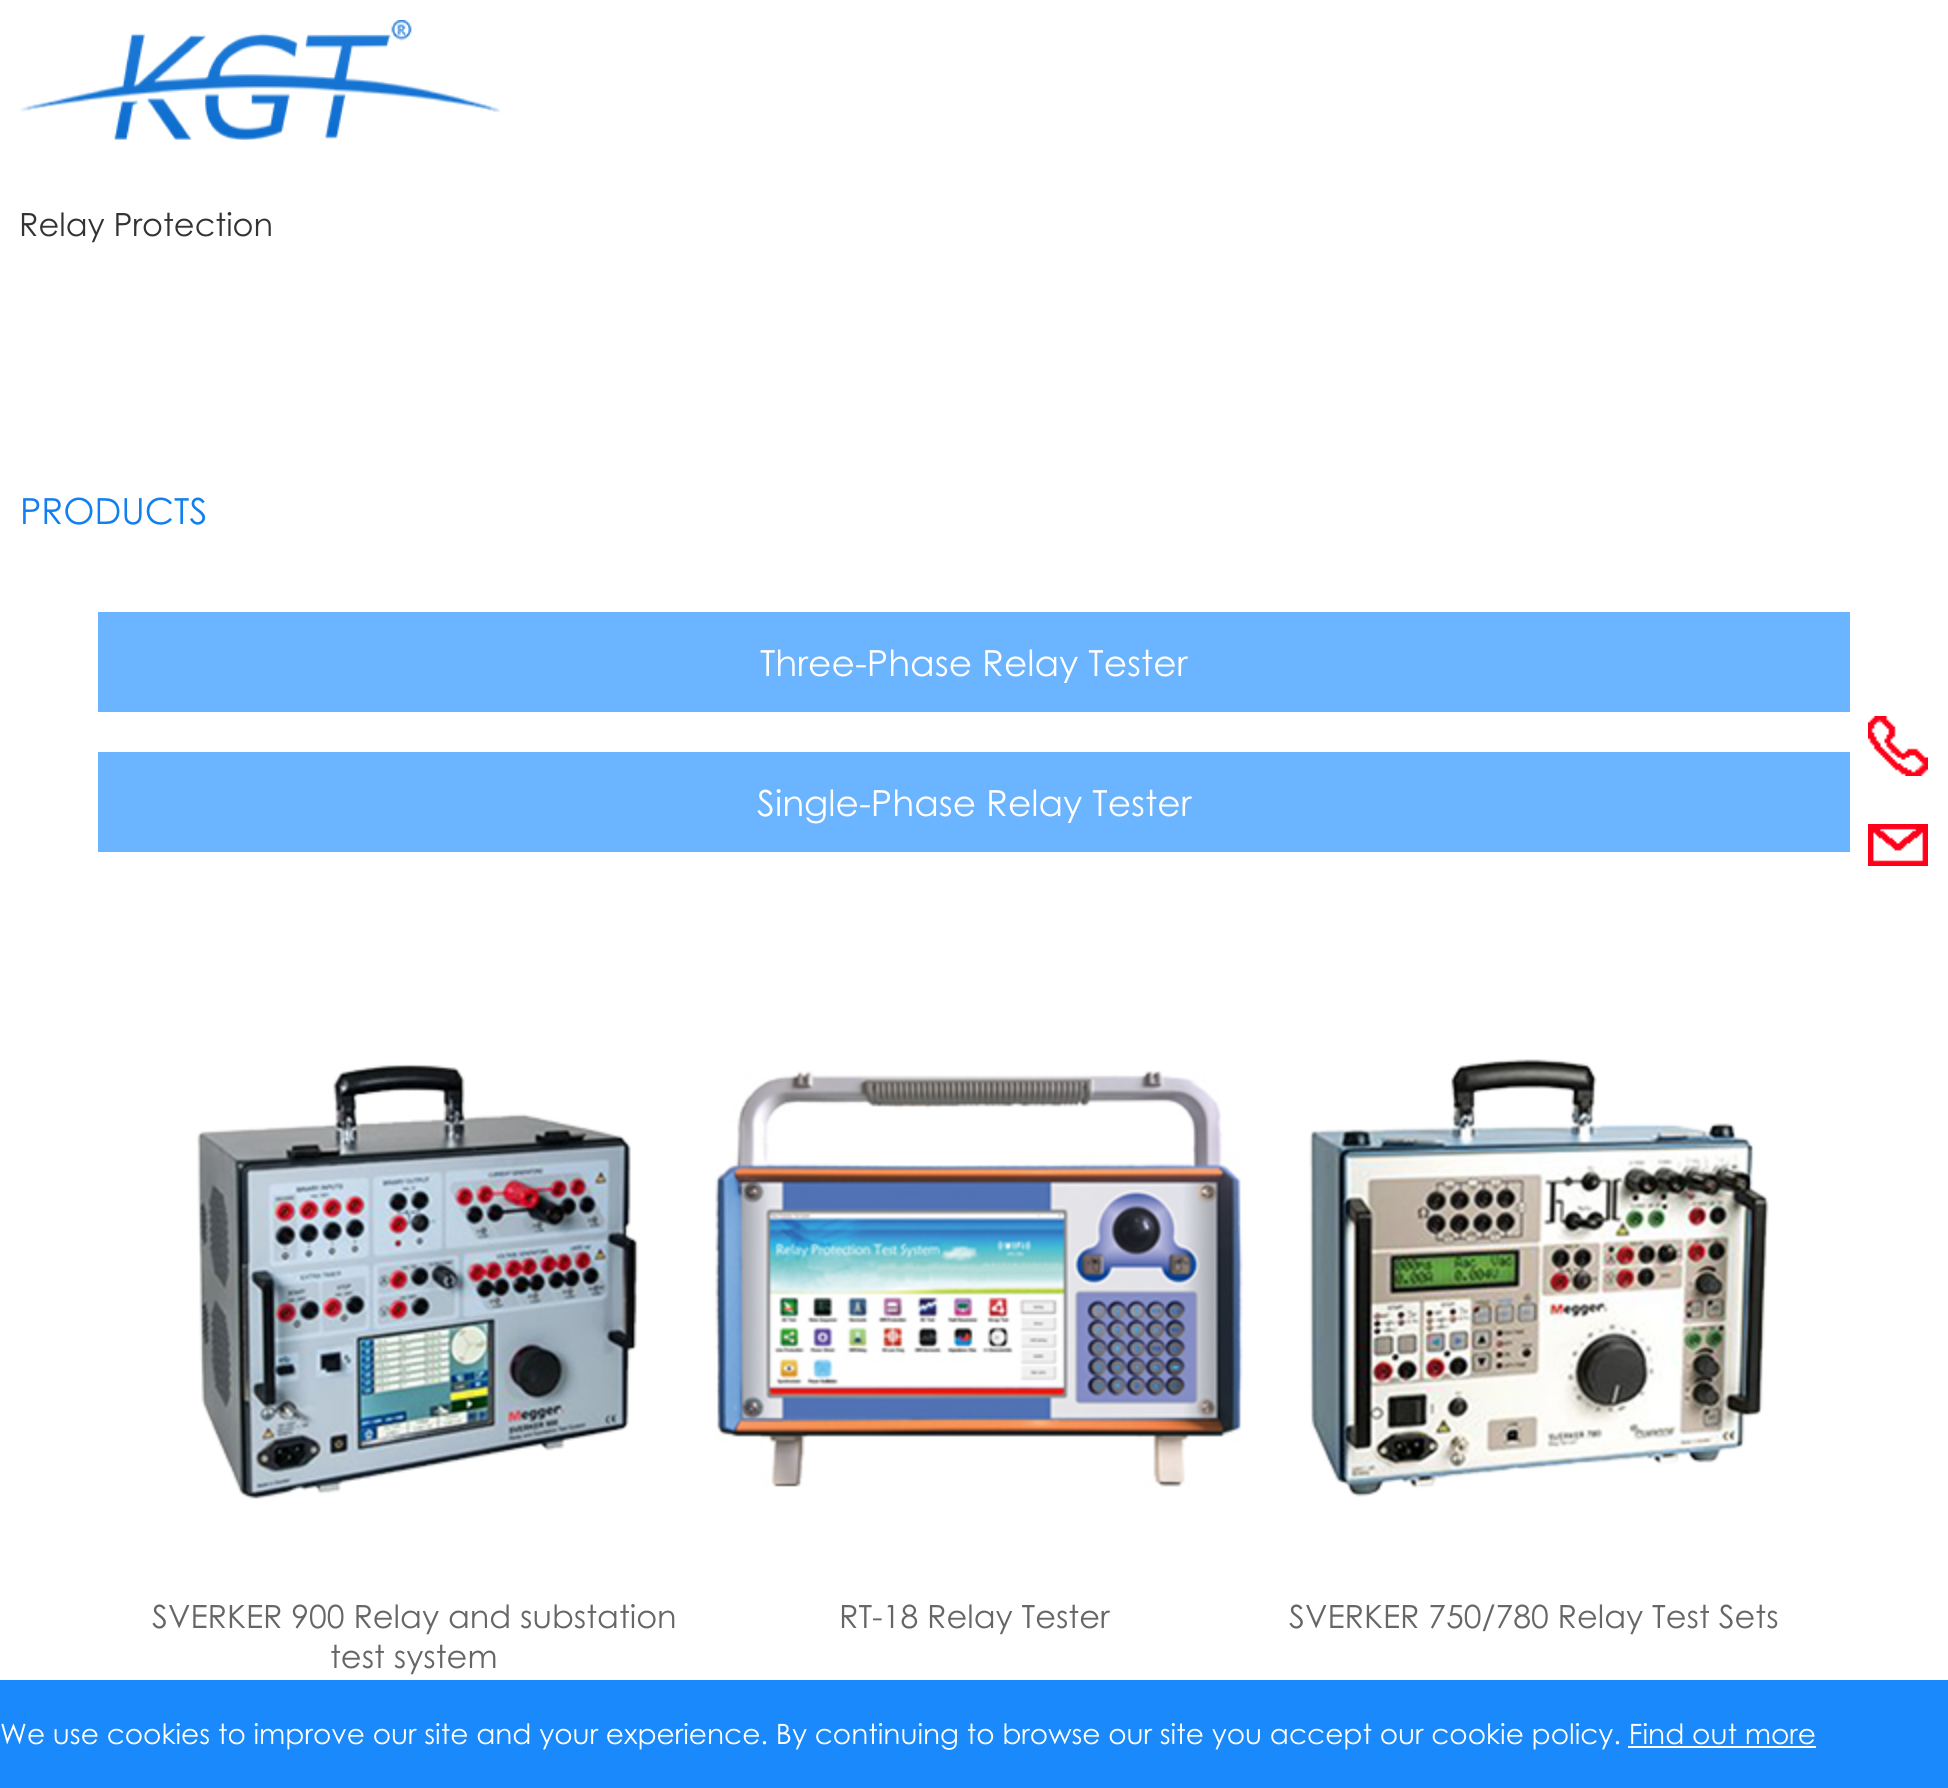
#include <cairo.h>
#include <math.h>
#include <stddef.h>


static void rgb(cairo_t *cr, int r, int g, int b)
{
	cairo_set_source_rgb(cr, r / 255.0, g / 255.0, b / 255.0);
}

static void face(cairo_t *cr, const char *family, double size, int italic, int bold)
{
	cairo_select_font_face(cr, family, italic ? CAIRO_FONT_SLANT_ITALIC : CAIRO_FONT_SLANT_NORMAL,
		bold ? CAIRO_FONT_WEIGHT_BOLD : CAIRO_FONT_WEIGHT_NORMAL);
	cairo_set_font_size(cr, size);
}

static void label(cairo_t *cr, double x, double y, const char *s)
{
	cairo_move_to(cr, x, y);
	cairo_show_text(cr, s);
}

static void rect(cairo_t *cr, double x, double y, double w, double h)
{
	cairo_rectangle(cr, x, y, w, h);
	cairo_fill(cr);
}

static void image(cairo_t *cr, const char *path, double x, double y, double w, double h)
{
	cairo_surface_t *image = cairo_image_surface_create_from_png(path);
	cairo_save(cr);
	cairo_set_source_surface(cr, image, x, y);
	cairo_rectangle(cr, x, y, w, h);
	cairo_fill(cr);
	cairo_restore(cr);
	cairo_surface_destroy(image);
}

static void draw(cairo_t *cr) {
	rgb(cr, 255, 255, 255);
	cairo_paint(cr);
	image(cr, "image0.png", 20, 20, 480, 120);
	face(cr, "Century Gothic", 32, 0, 0);
	rgb(cr, 51, 51, 51);
	label(cr, 19, 236, "Relay Protection");
	face(cr, "Century Gothic", 36, 0, 0);
	rgb(cr, 17, 127, 239);
	label(cr, 20, 524, "PRODUCTS");
	rgb(cr, 107, 180, 255);
	rect(cr, 98, 612, 1752, 100);
	rgb(cr, 255, 255, 255);
	label(cr, 760, 676, "Three-Phase Relay Tester");
	rgb(cr, 107, 180, 255);
	rect(cr, 98, 752, 1752, 100);
	rgb(cr, 255, 255, 255);
	label(cr, 757, 816, "Single-Phase Relay Tester");
	image(cr, "image1.png", 197, 1064, 442, 435);
	face(cr, "Century Gothic", 32, 0, 0);
	rgb(cr, 102, 102, 102);
	label(cr, 152, 1628, "SVERKER 900 Relay and substation");
	label(cr, 330, 1668, "test system");
	image(cr, "image2.png", 715, 1070, 528, 417);
	label(cr, 839, 1628, "RT-18 Relay Tester");
	image(cr, "image3.png", 1309, 1059, 460, 438);
	label(cr, 1289, 1628, "SVERKER 750/780 Relay Test Sets");
	image(cr, "image4.png", 1868, 716, 60, 60);
	image(cr, "image5.png", 1868, 824, 60, 42);
	rgb(cr, 25, 137, 251);
	rect(cr, 0, 1680, 1948, 108);
	face(cr, "Century Gothic", 28, 0, 0);
	rgb(cr, 255, 255, 255);
	label(cr, 0, 1744, "We use cookies to improve our site and your experience. By continuing to browse our site you accept our cookie policy. Find out more");
	rect(cr, 1628, 1746, 188, 2);
}

int main(void) {
	cairo_surface_t *surface = cairo_image_surface_create(CAIRO_FORMAT_RGB24, 1948, 1788);
	cairo_t *cr = cairo_create(surface);
	cairo_font_options_t *options = cairo_font_options_create();
	cairo_font_options_set_hint_metrics(options, CAIRO_HINT_METRICS_OFF);
	cairo_font_options_set_hint_style(options, CAIRO_HINT_STYLE_NONE);
	cairo_set_font_options(cr, options);
	cairo_set_miter_limit(cr, 4);
	draw(cr);
	cairo_surface_write_to_png(surface, "render.png");
	cairo_font_options_destroy(options);
	cairo_destroy(cr);
	cairo_surface_destroy(surface);
	return 0;
}
